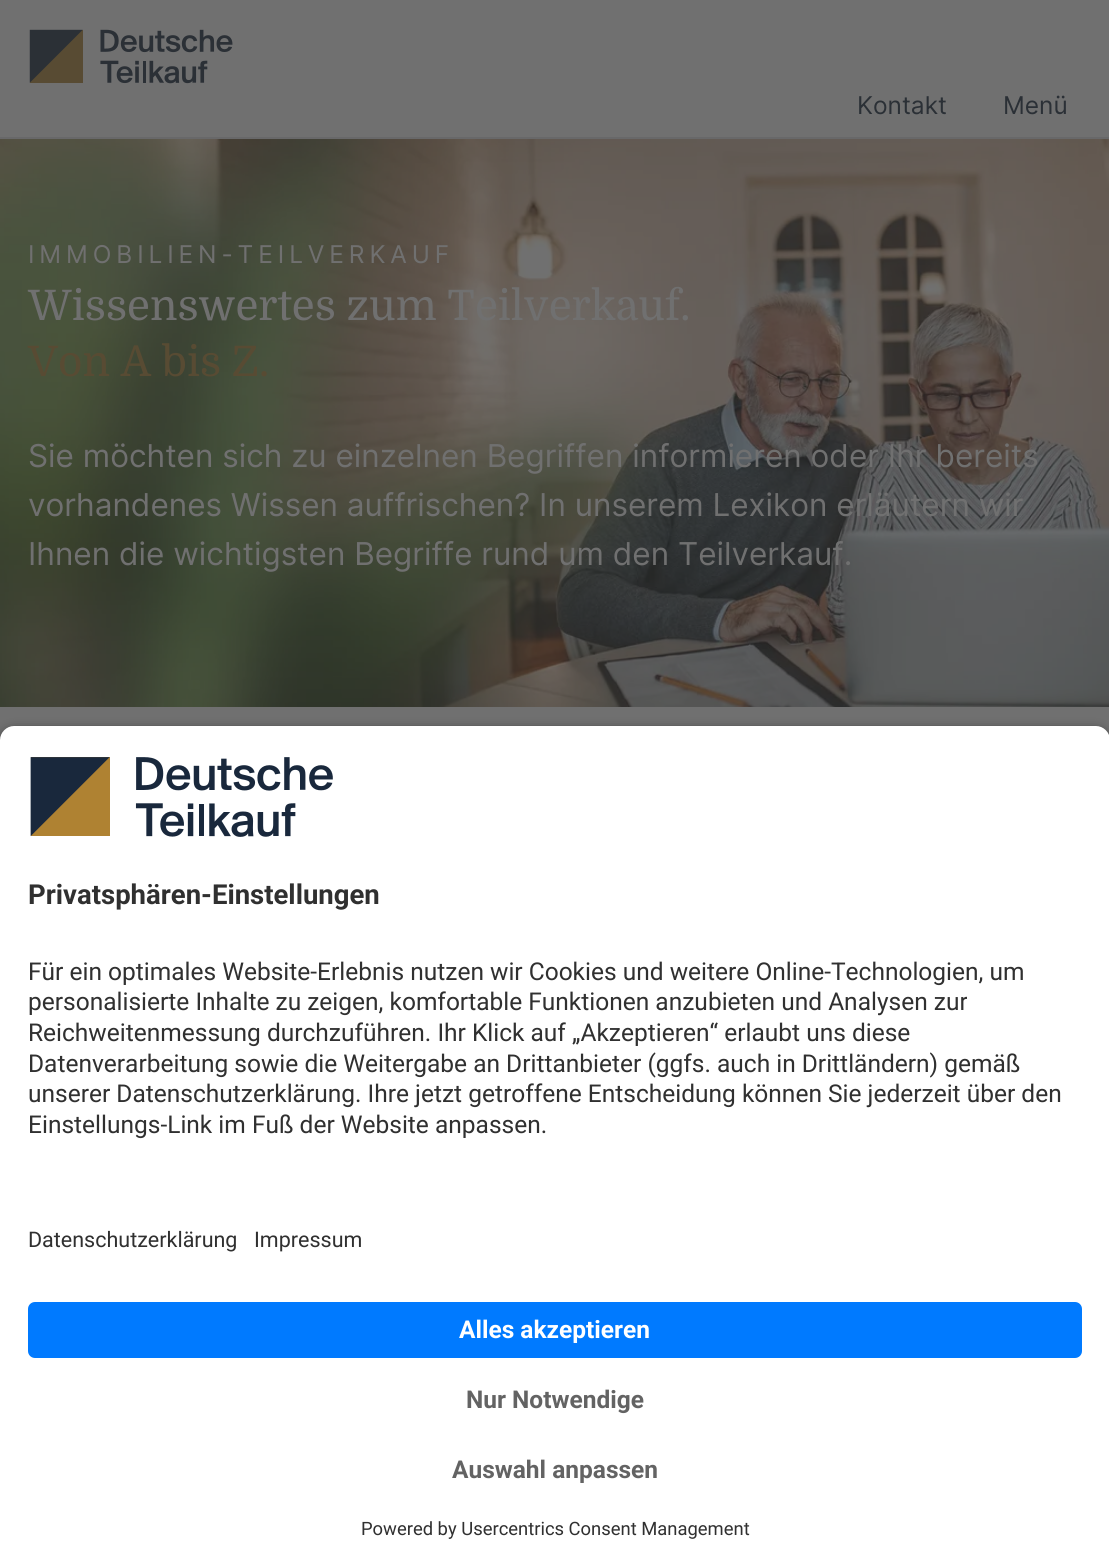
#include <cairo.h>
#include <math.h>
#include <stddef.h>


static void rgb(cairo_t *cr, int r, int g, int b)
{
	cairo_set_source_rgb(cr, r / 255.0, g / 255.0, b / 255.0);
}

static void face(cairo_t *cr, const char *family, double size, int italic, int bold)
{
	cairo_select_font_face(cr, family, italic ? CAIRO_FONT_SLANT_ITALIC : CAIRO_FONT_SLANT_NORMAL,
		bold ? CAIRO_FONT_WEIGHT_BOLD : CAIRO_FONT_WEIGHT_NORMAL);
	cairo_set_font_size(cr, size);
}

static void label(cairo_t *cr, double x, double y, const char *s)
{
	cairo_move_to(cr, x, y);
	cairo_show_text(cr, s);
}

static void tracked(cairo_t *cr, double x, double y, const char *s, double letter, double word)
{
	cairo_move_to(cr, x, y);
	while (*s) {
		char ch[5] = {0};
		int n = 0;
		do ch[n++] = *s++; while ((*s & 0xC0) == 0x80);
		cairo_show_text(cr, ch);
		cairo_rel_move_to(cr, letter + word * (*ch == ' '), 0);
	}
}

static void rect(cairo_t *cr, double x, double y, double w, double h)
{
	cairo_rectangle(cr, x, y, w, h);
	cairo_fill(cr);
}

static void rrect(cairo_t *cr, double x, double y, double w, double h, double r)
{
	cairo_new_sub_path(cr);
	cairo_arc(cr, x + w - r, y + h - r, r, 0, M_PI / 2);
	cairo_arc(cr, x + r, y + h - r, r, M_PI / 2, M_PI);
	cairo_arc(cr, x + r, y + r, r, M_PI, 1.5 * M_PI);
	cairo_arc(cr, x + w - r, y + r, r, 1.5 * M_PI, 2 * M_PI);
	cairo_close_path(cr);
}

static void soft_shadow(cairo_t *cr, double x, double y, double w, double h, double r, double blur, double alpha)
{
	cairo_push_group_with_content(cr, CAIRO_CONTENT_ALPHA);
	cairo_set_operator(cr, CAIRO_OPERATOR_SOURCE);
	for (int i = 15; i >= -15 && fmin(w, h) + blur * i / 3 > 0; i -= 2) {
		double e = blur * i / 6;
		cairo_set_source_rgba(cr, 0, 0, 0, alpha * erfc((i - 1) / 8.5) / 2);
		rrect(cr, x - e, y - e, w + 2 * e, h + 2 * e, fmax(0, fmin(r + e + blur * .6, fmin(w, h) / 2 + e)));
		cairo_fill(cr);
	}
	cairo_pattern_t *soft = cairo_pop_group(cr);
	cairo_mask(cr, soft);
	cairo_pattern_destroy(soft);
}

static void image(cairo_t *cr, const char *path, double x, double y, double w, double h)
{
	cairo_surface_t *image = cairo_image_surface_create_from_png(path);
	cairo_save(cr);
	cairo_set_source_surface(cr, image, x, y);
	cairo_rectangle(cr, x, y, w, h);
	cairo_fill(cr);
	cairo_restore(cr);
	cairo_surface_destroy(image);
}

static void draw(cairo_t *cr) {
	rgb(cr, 112, 112, 112);
	cairo_paint(cr);
	rgb(cr, 104, 104, 105);
	rect(cr, 0, 137, 1109, 2);
	image(cr, "image0.png", 29, 29, 204, 55);
	face(cr, "Inter", 24.5, 0, 0);
	rgb(cr, 43, 48, 54);
	label(cr, 857, 114, "Kontakt");
	label(cr, 1003, 114, "Menü");
	image(cr, "image1.png", 0, 139, 1109, 568);
	rgb(cr, 112, 112, 112);
	tracked(cr, 28, 263, "IMMOBILIEN-TEILVERKAUF", 4.9, 0);
	face(cr, "Domine", 42, 0, 0);
	label(cr, 28, 320, "Wissenswertes zum Teilverkauf.");
	rgb(cr, 88, 75, 51);
	label(cr, 28, 376, "Von A bis Z.");
	face(cr, "Inter", 31.5, 0, 0);
	rgb(cr, 112, 112, 112);
	label(cr, 28, 467, "Sie möchten sich zu einzelnen Begriffen informieren oder Ihr bereits");
	label(cr, 28, 516, "vorhandenes Wissen auffrischen? In unserem Lexikon erläutern wir");
	label(cr, 28, 565, "Ihnen die wichtigsten Begriffe rund um den Teilverkauf.");
	rgb(cr, 0, 0, 0);
	soft_shadow(cr, 0, 732, 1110, 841, 14, 6, 0.8);
	rgb(cr, 255, 255, 255);
	cairo_new_path(cr);
	cairo_move_to(cr, 14, 726);
	cairo_line_to(cr, 1096, 726);
	cairo_curve_to(cr, 1103.5, 726, 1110, 732.5, 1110, 740);
	cairo_line_to(cr, 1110, 1201);
	cairo_line_to(cr, 0, 1201);
	cairo_line_to(cr, 0, 740);
	cairo_curve_to(cr, 0, 732.5, 6.5, 726, 14, 726);
	cairo_close_path(cr);
	cairo_fill(cr);
	image(cr, "image2.png", 30, 757, 303, 80);
	face(cr, "Roboto", 27.5, 0, 1);
	rgb(cr, 48, 48, 48);
	label(cr, 28, 904, "Privatsphären-Einstellungen");
	face(cr, "Roboto", 24.5, 0, 0);
	label(cr, 28, 980, "Für ein optimales Website-Erlebnis nutzen wir Cookies und weitere Online-Technologien, um");
	label(cr, 28, 1010, "personalisierte Inhalte zu zeigen, komfortable Funktionen anzubieten und Analysen zur");
	label(cr, 28, 1041, "Reichweitenmessung durchzuführen. Ihr Klick auf „Akzeptieren“ erlaubt uns diese");
	label(cr, 28, 1072, "Datenverarbeitung sowie die Weitergabe an Drittanbieter (ggfs. auch in Drittländern) gemäß");
	label(cr, 28, 1102, "unserer Datenschutzerklärung. Ihre jetzt getroffene Entscheidung können Sie jederzeit über den");
	label(cr, 28, 1133, "Einstellungs-Link im Fuß der Website anpassen.");
	rgb(cr, 255, 255, 255);
	rect(cr, 0, 1201, 1109, 366);
	face(cr, "Roboto", 21.5, 0, 0);
	rgb(cr, 48, 48, 48);
	label(cr, 28, 1247, "Datenschutzerklärung");
	label(cr, 254, 1247, "Impressum");
	rgb(cr, 0, 122, 255);
	rrect(cr, 28, 1302, 1054, 56, 7);
	cairo_fill(cr);
	face(cr, "Roboto", 24.5, 0, 1);
	rgb(cr, 255, 255, 255);
	label(cr, 459, 1338, "Alles akzeptieren");
	rgb(cr, 99, 99, 99);
	label(cr, 466, 1408, "Nur Notwendige");
	label(cr, 452, 1478, "Auswahl anpassen");
	face(cr, "Roboto", 18.4, 0, 0);
	rgb(cr, 48, 48, 48);
	label(cr, 361, 1535, "Powered by Usercentrics Consent Management");
}

int main(void) {
	cairo_surface_t *surface = cairo_image_surface_create(CAIRO_FORMAT_RGB24, 1109, 1567);
	cairo_t *cr = cairo_create(surface);
	cairo_font_options_t *options = cairo_font_options_create();
	cairo_font_options_set_hint_metrics(options, CAIRO_HINT_METRICS_OFF);
	cairo_font_options_set_hint_style(options, CAIRO_HINT_STYLE_NONE);
	cairo_set_font_options(cr, options);
	cairo_set_miter_limit(cr, 4);
	draw(cr);
	cairo_surface_write_to_png(surface, "render.png");
	cairo_font_options_destroy(options);
	cairo_destroy(cr);
	cairo_surface_destroy(surface);
	return 0;
}
